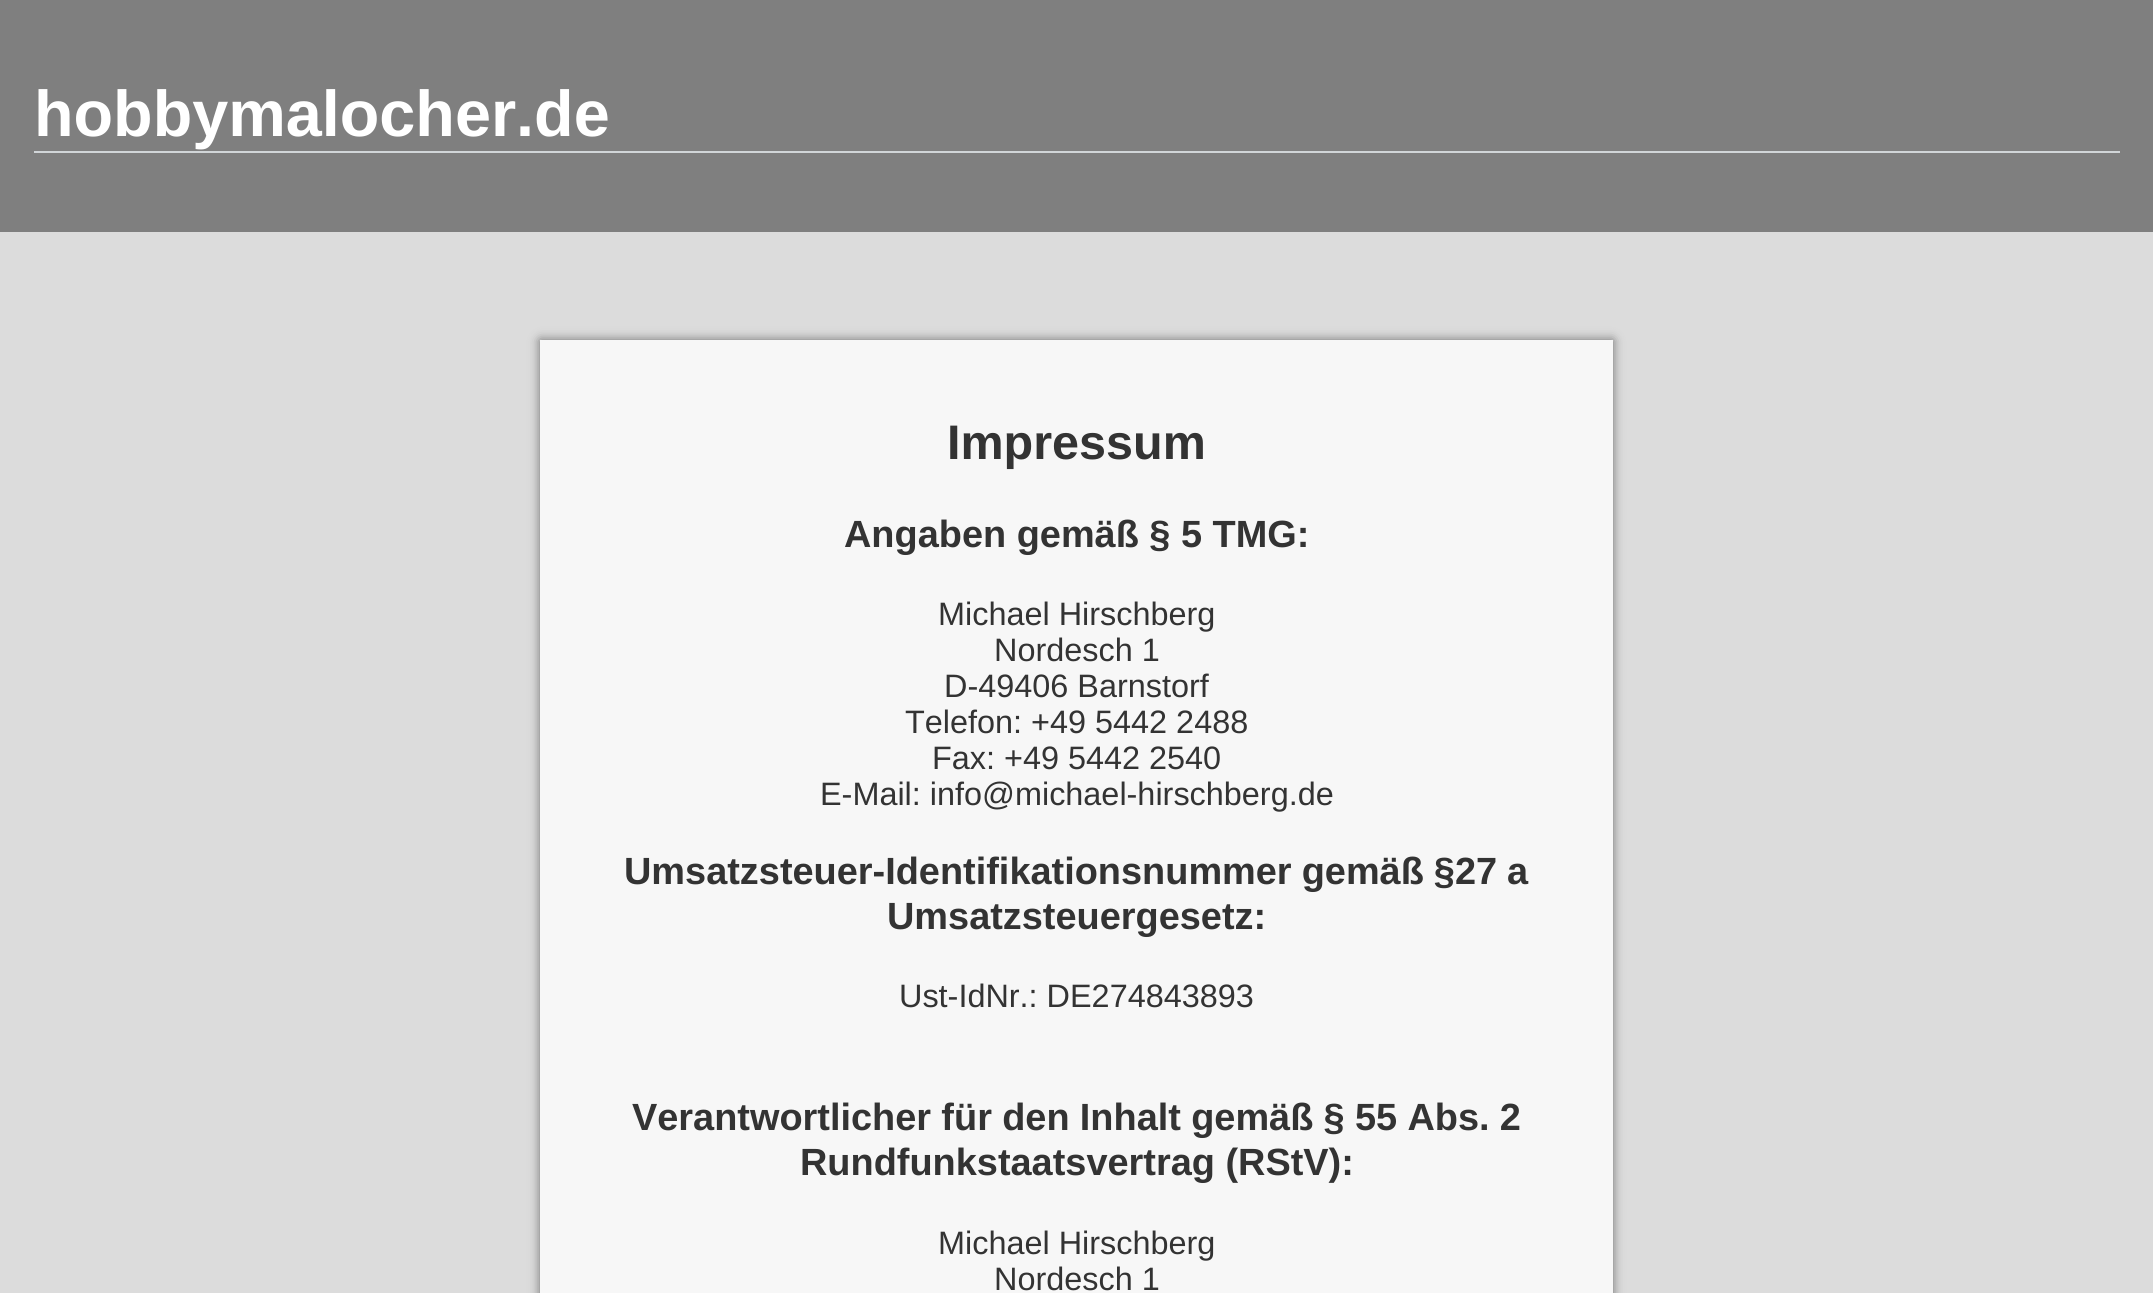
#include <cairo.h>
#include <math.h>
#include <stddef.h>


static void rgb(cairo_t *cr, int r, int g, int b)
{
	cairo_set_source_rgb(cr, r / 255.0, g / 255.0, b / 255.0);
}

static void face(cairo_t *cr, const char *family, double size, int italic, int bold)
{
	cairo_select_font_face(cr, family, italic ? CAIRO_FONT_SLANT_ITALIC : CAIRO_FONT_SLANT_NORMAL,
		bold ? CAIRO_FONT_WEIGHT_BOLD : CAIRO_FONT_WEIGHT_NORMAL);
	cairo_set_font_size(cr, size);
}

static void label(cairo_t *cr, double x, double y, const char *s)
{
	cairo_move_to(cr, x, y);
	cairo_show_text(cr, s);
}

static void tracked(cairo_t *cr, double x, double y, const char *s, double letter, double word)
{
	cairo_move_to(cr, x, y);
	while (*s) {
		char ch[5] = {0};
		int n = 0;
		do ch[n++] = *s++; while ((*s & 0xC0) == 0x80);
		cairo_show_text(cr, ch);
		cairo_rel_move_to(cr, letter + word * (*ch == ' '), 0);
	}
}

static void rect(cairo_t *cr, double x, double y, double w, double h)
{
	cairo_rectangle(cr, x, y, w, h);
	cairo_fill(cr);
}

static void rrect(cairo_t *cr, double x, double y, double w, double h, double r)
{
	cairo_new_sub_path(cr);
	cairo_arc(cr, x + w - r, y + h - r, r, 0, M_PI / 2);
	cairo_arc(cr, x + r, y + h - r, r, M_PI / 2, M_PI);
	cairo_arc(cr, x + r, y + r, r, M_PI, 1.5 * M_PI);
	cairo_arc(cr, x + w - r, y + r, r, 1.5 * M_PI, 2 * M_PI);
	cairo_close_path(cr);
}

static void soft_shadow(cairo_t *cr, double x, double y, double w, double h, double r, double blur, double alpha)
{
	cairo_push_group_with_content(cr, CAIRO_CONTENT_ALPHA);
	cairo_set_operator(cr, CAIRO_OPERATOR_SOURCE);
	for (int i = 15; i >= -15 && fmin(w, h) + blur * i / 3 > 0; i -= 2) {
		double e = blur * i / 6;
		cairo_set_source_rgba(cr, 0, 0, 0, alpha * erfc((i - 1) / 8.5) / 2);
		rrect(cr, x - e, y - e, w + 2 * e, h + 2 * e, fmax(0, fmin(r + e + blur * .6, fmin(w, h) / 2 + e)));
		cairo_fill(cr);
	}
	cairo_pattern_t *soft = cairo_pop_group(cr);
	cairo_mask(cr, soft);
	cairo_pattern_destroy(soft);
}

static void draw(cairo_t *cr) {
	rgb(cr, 220, 220, 220);
	cairo_paint(cr);
	rgb(cr, 127, 127, 127);
	rect(cr, 0, 0, 2153, 232);
	rgb(cr, 209, 213, 216);
	rect(cr, 34, 151, 2086, 2);
	face(cr, "Liberation Sans", 64.75, 0, 1);
	rgb(cr, 255, 255, 255);
	label(cr, 34, 136, "hobbymalocher.de");
	rgb(cr, 0, 0, 0);
	soft_shadow(cr, 540, 340, 1073, 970, 0, 5.5, 0.5);
	rgb(cr, 247, 247, 247);
	rect(cr, 540, 340, 1073, 953);
	face(cr, "Liberation Sans", 48.5, 0, 1);
	rgb(cr, 51, 51, 51);
	label(cr, 947, 459, "Impressum");
	face(cr, "Liberation Sans", 37.9, 0, 1);
	label(cr, 844, 547, "Angaben gemäß § 5 TMG:");
	face(cr, "Liberation Sans", 32.4, 0, 0);
	label(cr, 938, 625, "Michael Hirschberg");
	label(cr, 994, 661, "Nordesch 1");
	label(cr, 944, 697, "D-49406 Barnstorf");
	label(cr, 905, 733, "Telefon: +49 5442 2488");
	label(cr, 932, 769, "Fax: +49 5442 2540");
	label(cr, 820, 805, "E-Mail: info@michael-hirschberg.de");
	face(cr, "Liberation Sans", 37.9, 0, 1);
	tracked(cr, 624, 884, "Umsatzsteuer-Identifikationsnummer gemäß §27 a", 0, -0.5);
	label(cr, 887, 929, "Umsatzsteuergesetz:");
	face(cr, "Liberation Sans", 32.4, 0, 0);
	label(cr, 899, 1007, "Ust-IdNr.: DE274843893");
	face(cr, "Liberation Sans", 37.9, 0, 1);
	tracked(cr, 632, 1130, "Verantwortlicher für den Inhalt gemäß § 55 Abs. 2", 0, -0.25);
	label(cr, 800, 1175, "Rundfunkstaatsvertrag (RStV):");
	face(cr, "Liberation Sans", 32.4, 0, 0);
	label(cr, 938, 1254, "Michael Hirschberg");
	label(cr, 994, 1290, "Nordesch 1");
}

int main(void) {
	cairo_surface_t *surface = cairo_image_surface_create(CAIRO_FORMAT_RGB24, 2153, 1293);
	cairo_t *cr = cairo_create(surface);
	cairo_font_options_t *options = cairo_font_options_create();
	cairo_font_options_set_hint_metrics(options, CAIRO_HINT_METRICS_OFF);
	cairo_font_options_set_hint_style(options, CAIRO_HINT_STYLE_NONE);
	cairo_set_font_options(cr, options);
	cairo_set_miter_limit(cr, 4);
	draw(cr);
	cairo_surface_write_to_png(surface, "render.png");
	cairo_font_options_destroy(options);
	cairo_destroy(cr);
	cairo_surface_destroy(surface);
	return 0;
}
